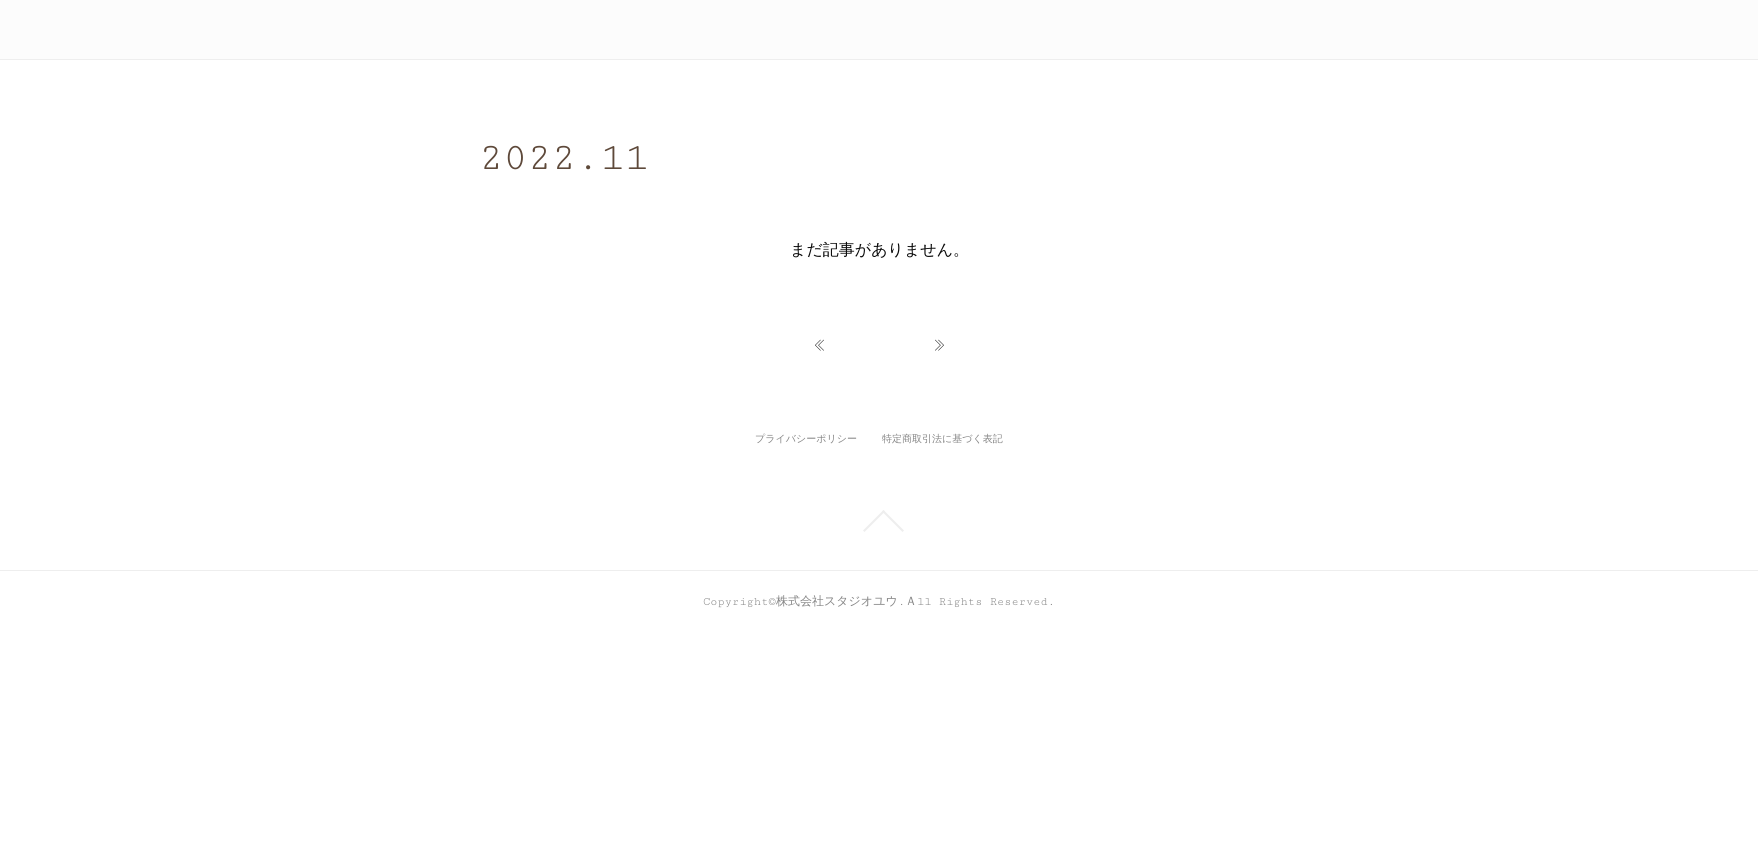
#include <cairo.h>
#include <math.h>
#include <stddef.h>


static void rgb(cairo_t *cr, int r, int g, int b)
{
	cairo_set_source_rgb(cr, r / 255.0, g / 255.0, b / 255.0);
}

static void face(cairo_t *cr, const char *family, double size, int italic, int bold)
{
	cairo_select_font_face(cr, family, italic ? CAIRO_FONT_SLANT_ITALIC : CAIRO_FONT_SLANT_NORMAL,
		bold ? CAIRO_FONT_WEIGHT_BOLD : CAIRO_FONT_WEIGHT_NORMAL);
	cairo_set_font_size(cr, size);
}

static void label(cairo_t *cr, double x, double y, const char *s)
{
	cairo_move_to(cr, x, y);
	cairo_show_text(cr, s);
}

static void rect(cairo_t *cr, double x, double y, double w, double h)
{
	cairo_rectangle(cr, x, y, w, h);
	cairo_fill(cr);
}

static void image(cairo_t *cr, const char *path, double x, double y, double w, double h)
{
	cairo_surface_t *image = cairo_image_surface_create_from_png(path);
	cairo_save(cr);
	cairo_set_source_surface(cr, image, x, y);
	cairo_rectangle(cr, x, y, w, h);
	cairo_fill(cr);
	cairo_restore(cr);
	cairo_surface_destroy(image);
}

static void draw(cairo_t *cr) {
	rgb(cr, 255, 255, 255);
	cairo_paint(cr);
	rgb(cr, 252, 252, 252);
	rect(cr, 0, 0, 1758, 59);
	rgb(cr, 238, 238, 238);
	rect(cr, 0, 59, 1758, 1);
	face(cr, "Cutive Mono", 40, 0, 0);
	rgb(cr, 94, 73, 58);
	label(cr, 479, 169, "2022.11");
	face(cr, "WenQuanYi Zen Hei Medium", 16, 0, 0);
	rgb(cr, 10, 10, 10);
	label(cr, 790, 255, "まだ記事がありません。");
	image(cr, "image0.png", 815, 339, 9, 12);
	image(cr, "image1.png", 935, 339, 9, 12);
	face(cr, "WenQuanYi Zen Hei Medium", 10, 0, 0);
	rgb(cr, 133, 133, 133);
	label(cr, 755, 442, "プライバシーポリシー");
	label(cr, 882, 442, "特定商取引法に基づく表記");
	rgb(cr, 238, 238, 238);
	cairo_new_path(cr);
	cairo_move_to(cr, 863, 530.5);
	cairo_line_to(cr, 883.5, 510);
	cairo_line_to(cr, 885, 511.5);
	cairo_line_to(cr, 864.5, 532);
	cairo_close_path(cr);
	cairo_fill(cr);
	cairo_new_path(cr);
	cairo_move_to(cr, 882, 511.5);
	cairo_line_to(cr, 883.5, 510);
	cairo_line_to(cr, 904, 530.5);
	cairo_line_to(cr, 902.5, 532);
	cairo_close_path(cr);
	cairo_fill(cr);
	rect(cr, 0, 570, 1758, 1);
	face(cr, "Cutive Mono", 12, 0, 0);
	rgb(cr, 133, 133, 133);
	label(cr, 703, 605, "Copyright©");
	face(cr, "WenQuanYi Zen Hei Medium", 12, 0, 0);
	label(cr, 776, 605, "株式会社スタジオユウ");
	face(cr, "Cutive Mono", 12, 0, 0);
	label(cr, 898, 605, ".");
	face(cr, "WenQuanYi Zen Hei Medium", 12, 0, 0);
	label(cr, 905, 605, "Ａ");
	face(cr, "Cutive Mono", 12, 0, 0);
	label(cr, 917, 605, "ll Rights Reserved.");
}

int main(void) {
	cairo_surface_t *surface = cairo_image_surface_create(CAIRO_FORMAT_RGB24, 1758, 842);
	cairo_t *cr = cairo_create(surface);
	cairo_font_options_t *options = cairo_font_options_create();
	cairo_font_options_set_hint_metrics(options, CAIRO_HINT_METRICS_OFF);
	cairo_font_options_set_hint_style(options, CAIRO_HINT_STYLE_NONE);
	cairo_set_font_options(cr, options);
	cairo_set_miter_limit(cr, 4);
	draw(cr);
	cairo_surface_write_to_png(surface, "render.png");
	cairo_font_options_destroy(options);
	cairo_destroy(cr);
	cairo_surface_destroy(surface);
	return 0;
}
